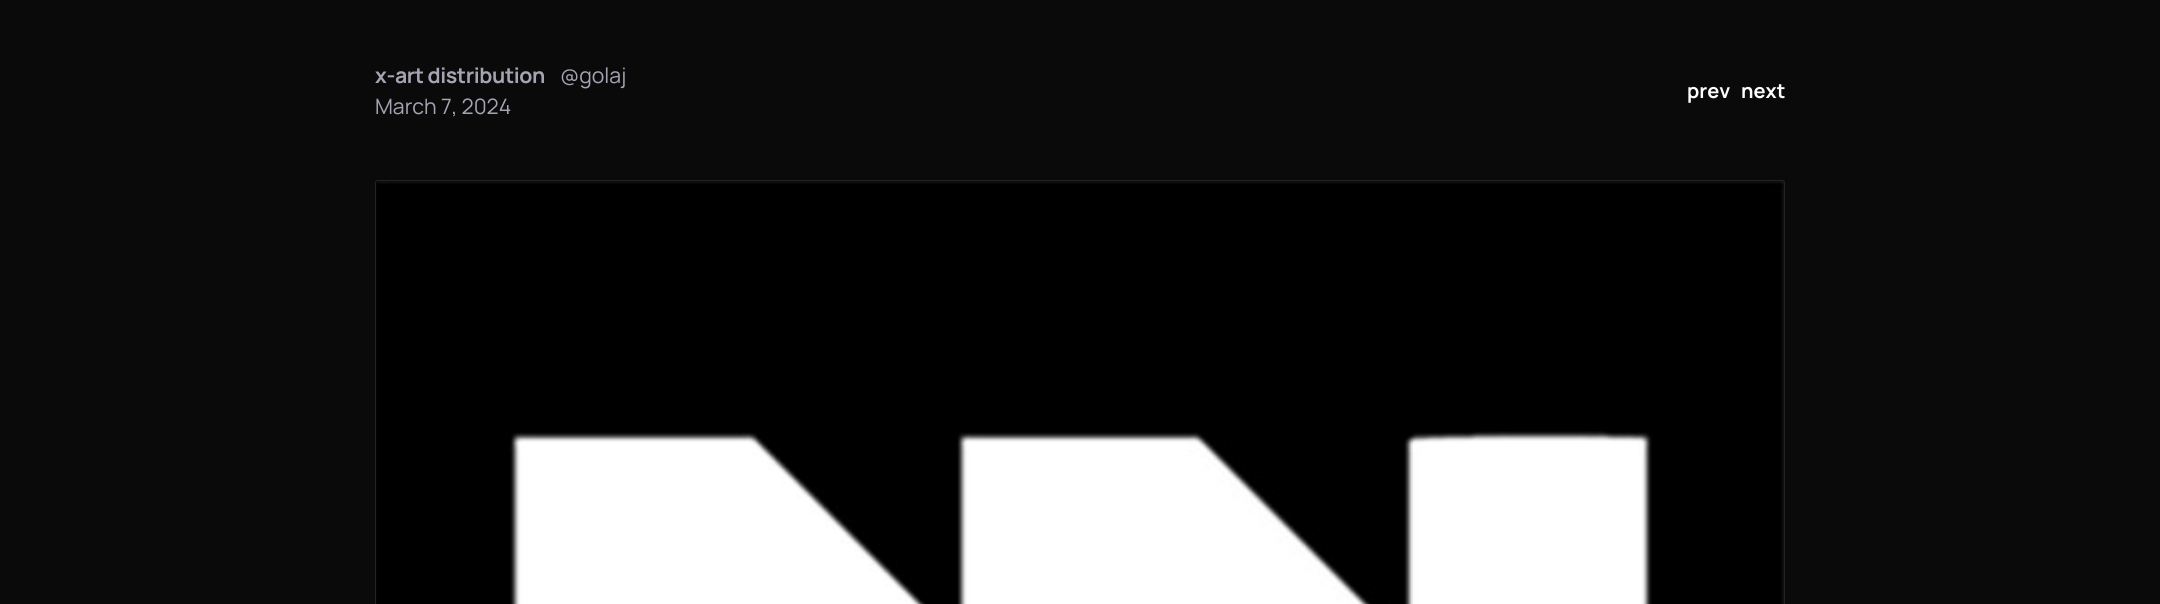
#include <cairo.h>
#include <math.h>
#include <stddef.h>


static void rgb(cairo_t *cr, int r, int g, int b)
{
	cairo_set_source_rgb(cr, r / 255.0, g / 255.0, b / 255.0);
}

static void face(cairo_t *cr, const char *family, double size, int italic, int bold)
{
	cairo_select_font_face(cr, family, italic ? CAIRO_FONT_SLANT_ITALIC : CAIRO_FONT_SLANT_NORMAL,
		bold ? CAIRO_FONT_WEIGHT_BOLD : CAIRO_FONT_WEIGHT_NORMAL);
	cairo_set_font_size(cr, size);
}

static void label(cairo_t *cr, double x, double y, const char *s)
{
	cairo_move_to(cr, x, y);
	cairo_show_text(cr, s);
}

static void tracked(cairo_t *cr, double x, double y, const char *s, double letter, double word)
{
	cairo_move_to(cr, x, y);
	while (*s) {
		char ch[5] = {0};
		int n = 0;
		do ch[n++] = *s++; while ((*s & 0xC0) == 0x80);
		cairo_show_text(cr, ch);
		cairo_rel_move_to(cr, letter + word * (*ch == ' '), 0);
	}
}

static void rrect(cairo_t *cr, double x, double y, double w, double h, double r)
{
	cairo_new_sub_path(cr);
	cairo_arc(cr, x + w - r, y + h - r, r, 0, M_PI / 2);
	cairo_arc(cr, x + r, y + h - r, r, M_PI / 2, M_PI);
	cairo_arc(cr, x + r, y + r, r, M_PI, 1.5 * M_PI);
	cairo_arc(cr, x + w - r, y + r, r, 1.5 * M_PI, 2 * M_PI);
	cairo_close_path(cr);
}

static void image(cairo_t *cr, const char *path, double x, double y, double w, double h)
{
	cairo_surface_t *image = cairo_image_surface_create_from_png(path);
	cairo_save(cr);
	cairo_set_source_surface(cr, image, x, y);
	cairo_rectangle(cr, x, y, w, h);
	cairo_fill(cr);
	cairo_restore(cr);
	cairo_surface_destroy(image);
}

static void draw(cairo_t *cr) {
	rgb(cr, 10, 10, 10);
	cairo_paint(cr);
	face(cr, "Manrope", 21.25, 0, 1);
	rgb(cr, 165, 164, 178);
	tracked(cr, 375, 83, "x-art distribution", -0.4, 0);
	face(cr, "Manrope", 21.25, 0, 0);
	label(cr, 560, 83, "@golaj");
	label(cr, 375, 114, "March 7, 2024");
	face(cr, "Manrope", 20, 0, 1);
	rgb(cr, 253, 253, 253);
	label(cr, 1687, 98, "prev");
	label(cr, 1741, 98, "next");
	rrect(cr, 375.5, 180.5, 1409, 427, 2);
	rgb(cr, 34, 35, 41);
	cairo_set_line_width(cr, 1);
	cairo_stroke(cr);
	image(cr, "image0.png", 376, 181, 1408, 423);
}

int main(void) {
	cairo_surface_t *surface = cairo_image_surface_create(CAIRO_FORMAT_RGB24, 2160, 604);
	cairo_t *cr = cairo_create(surface);
	cairo_font_options_t *options = cairo_font_options_create();
	cairo_font_options_set_hint_metrics(options, CAIRO_HINT_METRICS_OFF);
	cairo_font_options_set_hint_style(options, CAIRO_HINT_STYLE_NONE);
	cairo_set_font_options(cr, options);
	cairo_set_miter_limit(cr, 4);
	draw(cr);
	cairo_surface_write_to_png(surface, "render.png");
	cairo_font_options_destroy(options);
	cairo_destroy(cr);
	cairo_surface_destroy(surface);
	return 0;
}
